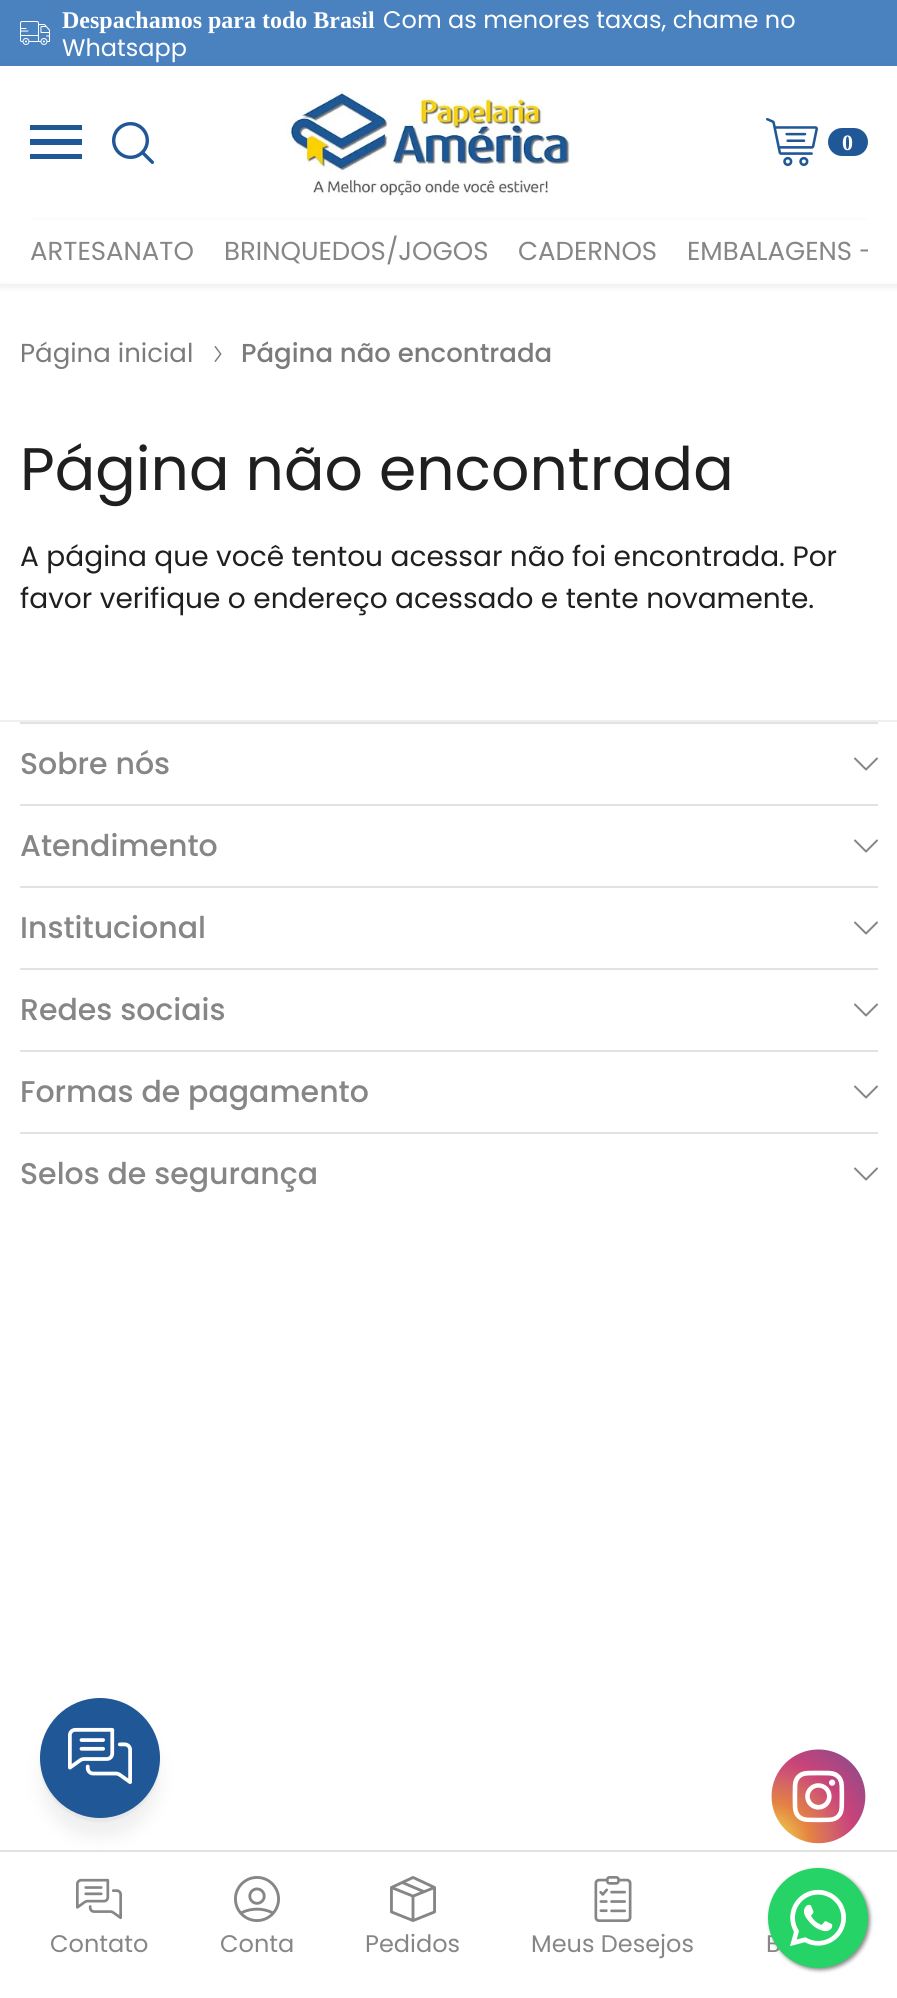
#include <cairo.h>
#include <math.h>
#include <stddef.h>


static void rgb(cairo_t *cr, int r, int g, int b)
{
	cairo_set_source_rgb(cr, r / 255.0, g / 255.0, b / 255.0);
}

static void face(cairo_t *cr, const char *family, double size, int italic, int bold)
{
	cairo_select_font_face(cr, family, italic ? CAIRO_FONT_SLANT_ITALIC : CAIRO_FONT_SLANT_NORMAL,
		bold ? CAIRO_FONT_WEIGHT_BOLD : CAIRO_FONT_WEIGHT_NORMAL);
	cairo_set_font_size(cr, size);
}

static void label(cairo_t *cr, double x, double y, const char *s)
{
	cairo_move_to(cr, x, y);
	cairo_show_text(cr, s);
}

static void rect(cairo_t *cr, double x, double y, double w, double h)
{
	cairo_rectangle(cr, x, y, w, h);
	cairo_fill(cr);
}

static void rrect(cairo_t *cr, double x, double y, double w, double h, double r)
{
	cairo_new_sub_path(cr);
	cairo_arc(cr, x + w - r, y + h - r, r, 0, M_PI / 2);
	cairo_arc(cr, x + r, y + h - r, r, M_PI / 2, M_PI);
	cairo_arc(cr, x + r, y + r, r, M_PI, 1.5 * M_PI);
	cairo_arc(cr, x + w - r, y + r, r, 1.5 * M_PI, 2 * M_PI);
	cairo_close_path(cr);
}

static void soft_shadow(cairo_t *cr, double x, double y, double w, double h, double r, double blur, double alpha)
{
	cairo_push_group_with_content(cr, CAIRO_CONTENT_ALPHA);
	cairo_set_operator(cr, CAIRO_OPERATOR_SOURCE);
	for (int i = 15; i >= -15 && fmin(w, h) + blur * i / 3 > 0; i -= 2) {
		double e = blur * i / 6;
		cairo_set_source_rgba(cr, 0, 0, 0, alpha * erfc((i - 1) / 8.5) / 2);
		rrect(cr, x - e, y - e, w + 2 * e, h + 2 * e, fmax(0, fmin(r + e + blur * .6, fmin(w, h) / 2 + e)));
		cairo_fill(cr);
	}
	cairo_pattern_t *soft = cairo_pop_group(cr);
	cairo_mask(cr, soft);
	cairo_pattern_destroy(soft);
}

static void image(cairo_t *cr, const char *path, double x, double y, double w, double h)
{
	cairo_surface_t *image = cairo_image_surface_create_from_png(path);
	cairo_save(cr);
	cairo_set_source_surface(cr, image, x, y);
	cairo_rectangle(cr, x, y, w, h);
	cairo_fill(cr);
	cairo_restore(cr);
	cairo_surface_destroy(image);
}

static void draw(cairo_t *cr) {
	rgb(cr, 255, 255, 255);
	cairo_paint(cr);
	rgb(cr, 74, 129, 191);
	rect(cr, 0, 0, 897, 66);
	image(cr, "image0.png", 20, 21, 30, 24);
	face(cr, "Liberation Serif", 24, 0, 1);
	rgb(cr, 255, 255, 255);
	label(cr, 62, 28, "Despachamos para todo Brasil");
	face(cr, "Poppins", 24, 0, 0);
	label(cr, 383, 28, "Com as menores taxas, chame no");
	label(cr, 62, 56, "Whatsapp");
	cairo_save(cr);
	cairo_set_fill_rule(cr, CAIRO_FILL_RULE_EVEN_ODD);
	cairo_new_path(cr);
	cairo_move_to(cr, 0, 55);
	cairo_line_to(cr, 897, 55);
	cairo_line_to(cr, 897, 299);
	cairo_line_to(cr, 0, 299);
	cairo_close_path(cr);
	cairo_move_to(cr, 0, 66);
	cairo_line_to(cr, 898, 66);
	cairo_line_to(cr, 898, 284);
	cairo_line_to(cr, 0, 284);
	cairo_close_path(cr);
	cairo_clip(cr);
	rgb(cr, 82, 82, 82);
	soft_shadow(cr, 0, 68, 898, 218, 0, 4, 0.13);
	cairo_restore(cr);
	rgb(cr, 252, 252, 252);
	rect(cr, 0, 282, 897, 2);
	rgb(cr, 32, 87, 151);
	rect(cr, 30, 154, 52, 5);
	rect(cr, 30, 139, 52, 6);
	rect(cr, 30, 125, 52, 5);
	image(cr, "image1.png", 112, 122, 42, 42);
	image(cr, "image2.png", 286, 91, 284, 106);
	image(cr, "image3.png", 766, 118, 52, 49);
	rrect(cr, 828, 128, 40, 28, 14);
	cairo_fill(cr);
	face(cr, "Liberation Serif", 22, 0, 1);
	rgb(cr, 255, 255, 255);
	label(cr, 842, 150, "0");
	rgb(cr, 252, 252, 252);
	rect(cr, 30, 218, 838, 2);
	face(cr, "Poppins", 26, 0, 0);
	rgb(cr, 134, 134, 134);
	label(cr, 30, 260, "ARTESANATO");
	label(cr, 224, 260, "BRINQUEDOS/JOGOS");
	label(cr, 518, 260, "CADERNOS");
	cairo_save(cr);
	cairo_rectangle(cr, 30, 220, 838, 46);
	cairo_clip(cr);
	label(cr, 687, 260, "EMBALAGENS -");
	cairo_restore(cr);
	rgb(cr, 123, 123, 123);
	label(cr, 20, 362, "Página inicial");
	image(cr, "image4.png", 214, 346, 8, 16);
	face(cr, "Poppins Medium", 26, 0, 0);
	label(cr, 241, 362, "Página não encontrada");
	face(cr, "Poppins", 60, 0, 0);
	rgb(cr, 32, 31, 31);
	label(cr, 20, 490, "Página não encontrada");
	face(cr, "Poppins", 28, 0, 0);
	label(cr, 20, 566, "A página que você tentou acessar não foi encontrada. Por");
	label(cr, 20, 608, "favor verifique o endereço acessado e tente novamente.");
	rgb(cr, 239, 239, 239);
	rect(cr, 0, 720, 897, 2);
	rgb(cr, 226, 226, 226);
	rect(cr, 20, 722, 858, 2);
	face(cr, "Poppins Medium", 30, 0, 0);
	rgb(cr, 134, 134, 134);
	label(cr, 20, 774, "Sobre nós");
	image(cr, "image5.png", 854, 757, 24, 14);
	rgb(cr, 226, 226, 226);
	rect(cr, 20, 804, 858, 2);
	rgb(cr, 134, 134, 134);
	label(cr, 20, 856, "Atendimento");
	image(cr, "image5.png", 854, 839, 24, 14);
	rgb(cr, 226, 226, 226);
	rect(cr, 20, 886, 858, 2);
	rgb(cr, 134, 134, 134);
	label(cr, 20, 938, "Institucional");
	image(cr, "image5.png", 854, 921, 24, 14);
	rgb(cr, 226, 226, 226);
	rect(cr, 20, 968, 858, 2);
	rgb(cr, 134, 134, 134);
	label(cr, 20, 1020, "Redes sociais");
	image(cr, "image5.png", 854, 1003, 24, 14);
	rgb(cr, 226, 226, 226);
	rect(cr, 20, 1050, 858, 2);
	rgb(cr, 134, 134, 134);
	label(cr, 20, 1102, "Formas de pagamento");
	image(cr, "image5.png", 854, 1085, 24, 14);
	rgb(cr, 226, 226, 226);
	rect(cr, 20, 1132, 858, 2);
	rgb(cr, 134, 134, 134);
	label(cr, 20, 1184, "Selos de segurança");
	image(cr, "image5.png", 854, 1167, 24, 14);
	rgb(cr, 103, 103, 103);
	soft_shadow(cr, 40, 1718, 120, 120, 60, 8, 0.1);
	rgb(cr, 0, 0, 0);
	soft_shadow(cr, 40, 1702, 120, 120, 60, 1, 0.04);
	rgb(cr, 32, 87, 151);
	cairo_arc(cr, 100, 1758, 60, 0, 2 * M_PI);
	cairo_fill(cr);
	image(cr, "image6.png", 68, 1727, 64, 57);
	image(cr, "image7.png", 771, 1749, 95, 95);
	rgb(cr, 226, 226, 226);
	rect(cr, 0, 1850, 897, 2);
	image(cr, "image8.png", 76, 1878, 46, 42);
	face(cr, "Poppins", 24, 0, 0);
	rgb(cr, 134, 134, 134);
	label(cr, 50, 1952, "Contato");
	image(cr, "image9.png", 234, 1876, 46, 46);
	label(cr, 220, 1952, "Conta");
	image(cr, "image10.png", 390, 1876, 46, 46);
	label(cr, 365, 1952, "Pedidos");
	image(cr, "image11.png", 594, 1876, 38, 46);
	label(cr, 531, 1952, "Meus Desejos");
	label(cr, 766, 1952, "B");
	rgb(cr, 136, 136, 136);
	soft_shadow(cr, 770, 1870, 100, 100, 50, 2, 1);
	image(cr, "image12.png", 768, 1868, 100, 100);
}

int main(void) {
	cairo_surface_t *surface = cairo_image_surface_create(CAIRO_FORMAT_RGB24, 897, 1998);
	cairo_t *cr = cairo_create(surface);
	cairo_font_options_t *options = cairo_font_options_create();
	cairo_font_options_set_hint_metrics(options, CAIRO_HINT_METRICS_OFF);
	cairo_font_options_set_hint_style(options, CAIRO_HINT_STYLE_NONE);
	cairo_set_font_options(cr, options);
	cairo_set_miter_limit(cr, 4);
	draw(cr);
	cairo_surface_write_to_png(surface, "render.png");
	cairo_font_options_destroy(options);
	cairo_destroy(cr);
	cairo_surface_destroy(surface);
	return 0;
}
